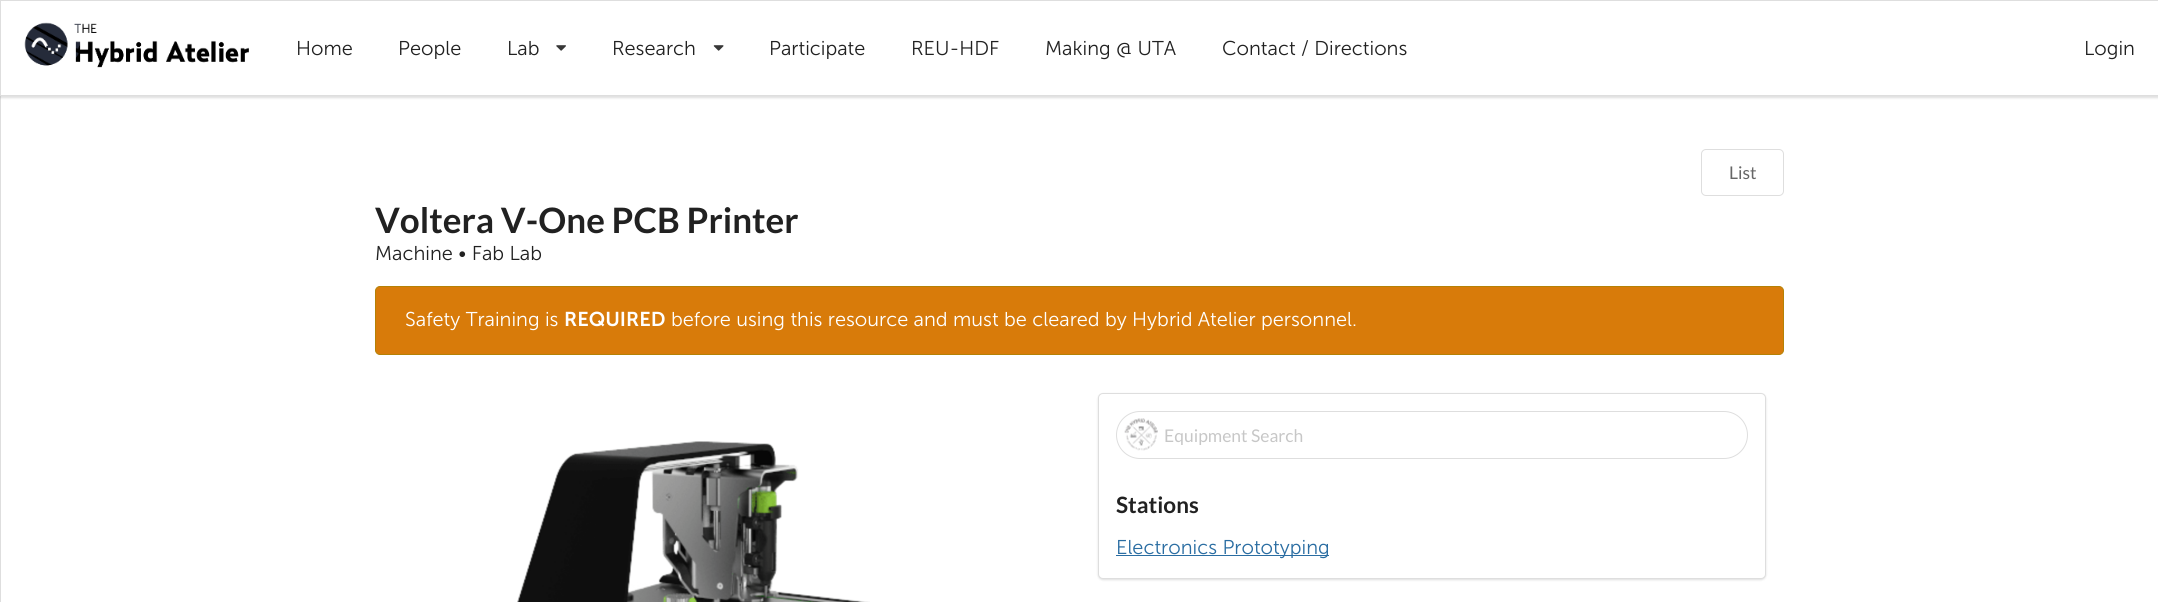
#include <cairo.h>
#include <math.h>
#include <stddef.h>


static void rgb(cairo_t *cr, int r, int g, int b)
{
	cairo_set_source_rgb(cr, r / 255.0, g / 255.0, b / 255.0);
}

static void face(cairo_t *cr, const char *family, double size, int italic, int bold)
{
	cairo_select_font_face(cr, family, italic ? CAIRO_FONT_SLANT_ITALIC : CAIRO_FONT_SLANT_NORMAL,
		bold ? CAIRO_FONT_WEIGHT_BOLD : CAIRO_FONT_WEIGHT_NORMAL);
	cairo_set_font_size(cr, size);
}

static void label(cairo_t *cr, double x, double y, const char *s)
{
	cairo_move_to(cr, x, y);
	cairo_show_text(cr, s);
}

static void rect(cairo_t *cr, double x, double y, double w, double h)
{
	cairo_rectangle(cr, x, y, w, h);
	cairo_fill(cr);
}

static void rrect(cairo_t *cr, double x, double y, double w, double h, double r)
{
	cairo_new_sub_path(cr);
	cairo_arc(cr, x + w - r, y + h - r, r, 0, M_PI / 2);
	cairo_arc(cr, x + r, y + h - r, r, M_PI / 2, M_PI);
	cairo_arc(cr, x + r, y + r, r, M_PI, 1.5 * M_PI);
	cairo_arc(cr, x + w - r, y + r, r, 1.5 * M_PI, 2 * M_PI);
	cairo_close_path(cr);
}

static void soft_shadow(cairo_t *cr, double x, double y, double w, double h, double r, double blur, double alpha)
{
	cairo_push_group_with_content(cr, CAIRO_CONTENT_ALPHA);
	cairo_set_operator(cr, CAIRO_OPERATOR_SOURCE);
	for (int i = 15; i >= -15 && fmin(w, h) + blur * i / 3 > 0; i -= 2) {
		double e = blur * i / 6;
		cairo_set_source_rgba(cr, 0, 0, 0, alpha * erfc((i - 1) / 8.5) / 2);
		rrect(cr, x - e, y - e, w + 2 * e, h + 2 * e, fmax(0, fmin(r + e + blur * .6, fmin(w, h) / 2 + e)));
		cairo_fill(cr);
	}
	cairo_pattern_t *soft = cairo_pop_group(cr);
	cairo_mask(cr, soft);
	cairo_pattern_destroy(soft);
}

static void image(cairo_t *cr, const char *path, double x, double y, double w, double h)
{
	cairo_surface_t *image = cairo_image_surface_create_from_png(path);
	cairo_save(cr);
	cairo_set_source_surface(cr, image, x, y);
	cairo_rectangle(cr, x, y, w, h);
	cairo_fill(cr);
	cairo_restore(cr);
	cairo_surface_destroy(image);
}

static void draw(cairo_t *cr) {
	rgb(cr, 255, 255, 255);
	cairo_paint(cr);
	cairo_rectangle(cr, 0.5, 35.5, 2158, 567);
	rgb(cr, 222, 222, 222);
	cairo_set_line_width(cr, 1);
	cairo_stroke(cr);
	rgb(cr, 34, 36, 38);
	soft_shadow(cr, 0, 1, 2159, 97, 0, 1, 0.15);
	rgb(cr, 255, 255, 255);
	cairo_rectangle(cr, 0.5, 0.5, 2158, 95);
	cairo_fill_preserve(cr);
	rgb(cr, 222, 222, 222);
	cairo_stroke(cr);
	image(cr, "image0.png", 24, 22, 225, 46);
	face(cr, "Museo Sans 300 Light", 20, 0, 0);
	rgb(cr, 33, 33, 33);
	label(cr, 296, 55, "Home");
	label(cr, 398, 55, "People");
	label(cr, 507, 55, "Lab");
	image(cr, "image1.png", 556, 45, 10, 6);
	label(cr, 612, 55, "Research");
	image(cr, "image2.png", 713, 45, 11, 6);
	label(cr, 769, 55, "Participate");
	label(cr, 911, 55, "REU-HDF");
	label(cr, 1045, 55, "Making @ UTA");
	label(cr, 1222, 55, "Contact / Directions");
	label(cr, 2084, 55, "Login");
	rrect(cr, 1701.5, 149.5, 82, 46, 4.5);
	rgb(cr, 222, 222, 222);
	cairo_stroke(cr);
	face(cr, "Lato", 17.5, 0, 0);
	rgb(cr, 102, 102, 102);
	label(cr, 1729, 179, "List");
	face(cr, "Lato", 35, 0, 1);
	rgb(cr, 33, 33, 33);
	label(cr, 375, 233, "Voltera V-One PCB Printer");
	face(cr, "Museo Sans 300 Light", 20, 0, 0);
	label(cr, 375, 260, "Machine • Fab Lab");
	rgb(cr, 216, 123, 10);
	rrect(cr, 375.5, 286.5, 1408, 68, 4.5);
	cairo_fill_preserve(cr);
	rgb(cr, 181, 129, 5);
	cairo_stroke(cr);
	rgb(cr, 255, 255, 255);
	label(cr, 405, 326, "Safety Training is");
	face(cr, "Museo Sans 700 SemiBold", 20, 0, 0);
	label(cr, 564, 326, "REQUIRED");
	face(cr, "Museo Sans 300 Light", 20, 0, 0);
	label(cr, 671, 326, "before using this resource and must be cleared by Hybrid Atelier personnel.");
	image(cr, "image3.png", 517, 441, 353, 161);
	rgb(cr, 34, 36, 38);
	soft_shadow(cr, 1098, 394, 668, 186, 5, 1, 0.15);
	rgb(cr, 255, 255, 255);
	rrect(cr, 1098, 393, 668, 186, 5);
	cairo_fill(cr);
	rrect(cr, 1098.5, 393.5, 667, 185, 4.5);
	cairo_set_source_rgba(cr, 0.133, 0.141, 0.149, 0.15);
	cairo_stroke(cr);
	rrect(cr, 1116.5, 411.5, 631, 47, 23.5);
	rgb(cr, 222, 222, 222);
	cairo_stroke(cr);
	image(cr, "image4.png", 1124, 418, 34, 33);
	face(cr, "Lato", 17.5, 0, 0);
	rgb(cr, 199, 199, 199);
	label(cr, 1164, 442, "Equipment Search");
	face(cr, "Lato", 22.5, 0, 1);
	rgb(cr, 33, 33, 33);
	label(cr, 1116, 513, "Stations");
	rgb(cr, 42, 109, 162);
	rect(cr, 1116, 555, 213, 1);
	face(cr, "Museo Sans 300 Light", 20, 0, 0);
	label(cr, 1116, 554, "Electronics Prototyping");
}

int main(void) {
	cairo_surface_t *surface = cairo_image_surface_create(CAIRO_FORMAT_RGB24, 2158, 602);
	cairo_t *cr = cairo_create(surface);
	cairo_font_options_t *options = cairo_font_options_create();
	cairo_font_options_set_hint_metrics(options, CAIRO_HINT_METRICS_OFF);
	cairo_font_options_set_hint_style(options, CAIRO_HINT_STYLE_NONE);
	cairo_set_font_options(cr, options);
	cairo_set_miter_limit(cr, 4);
	draw(cr);
	cairo_surface_write_to_png(surface, "render.png");
	cairo_font_options_destroy(options);
	cairo_destroy(cr);
	cairo_surface_destroy(surface);
	return 0;
}
